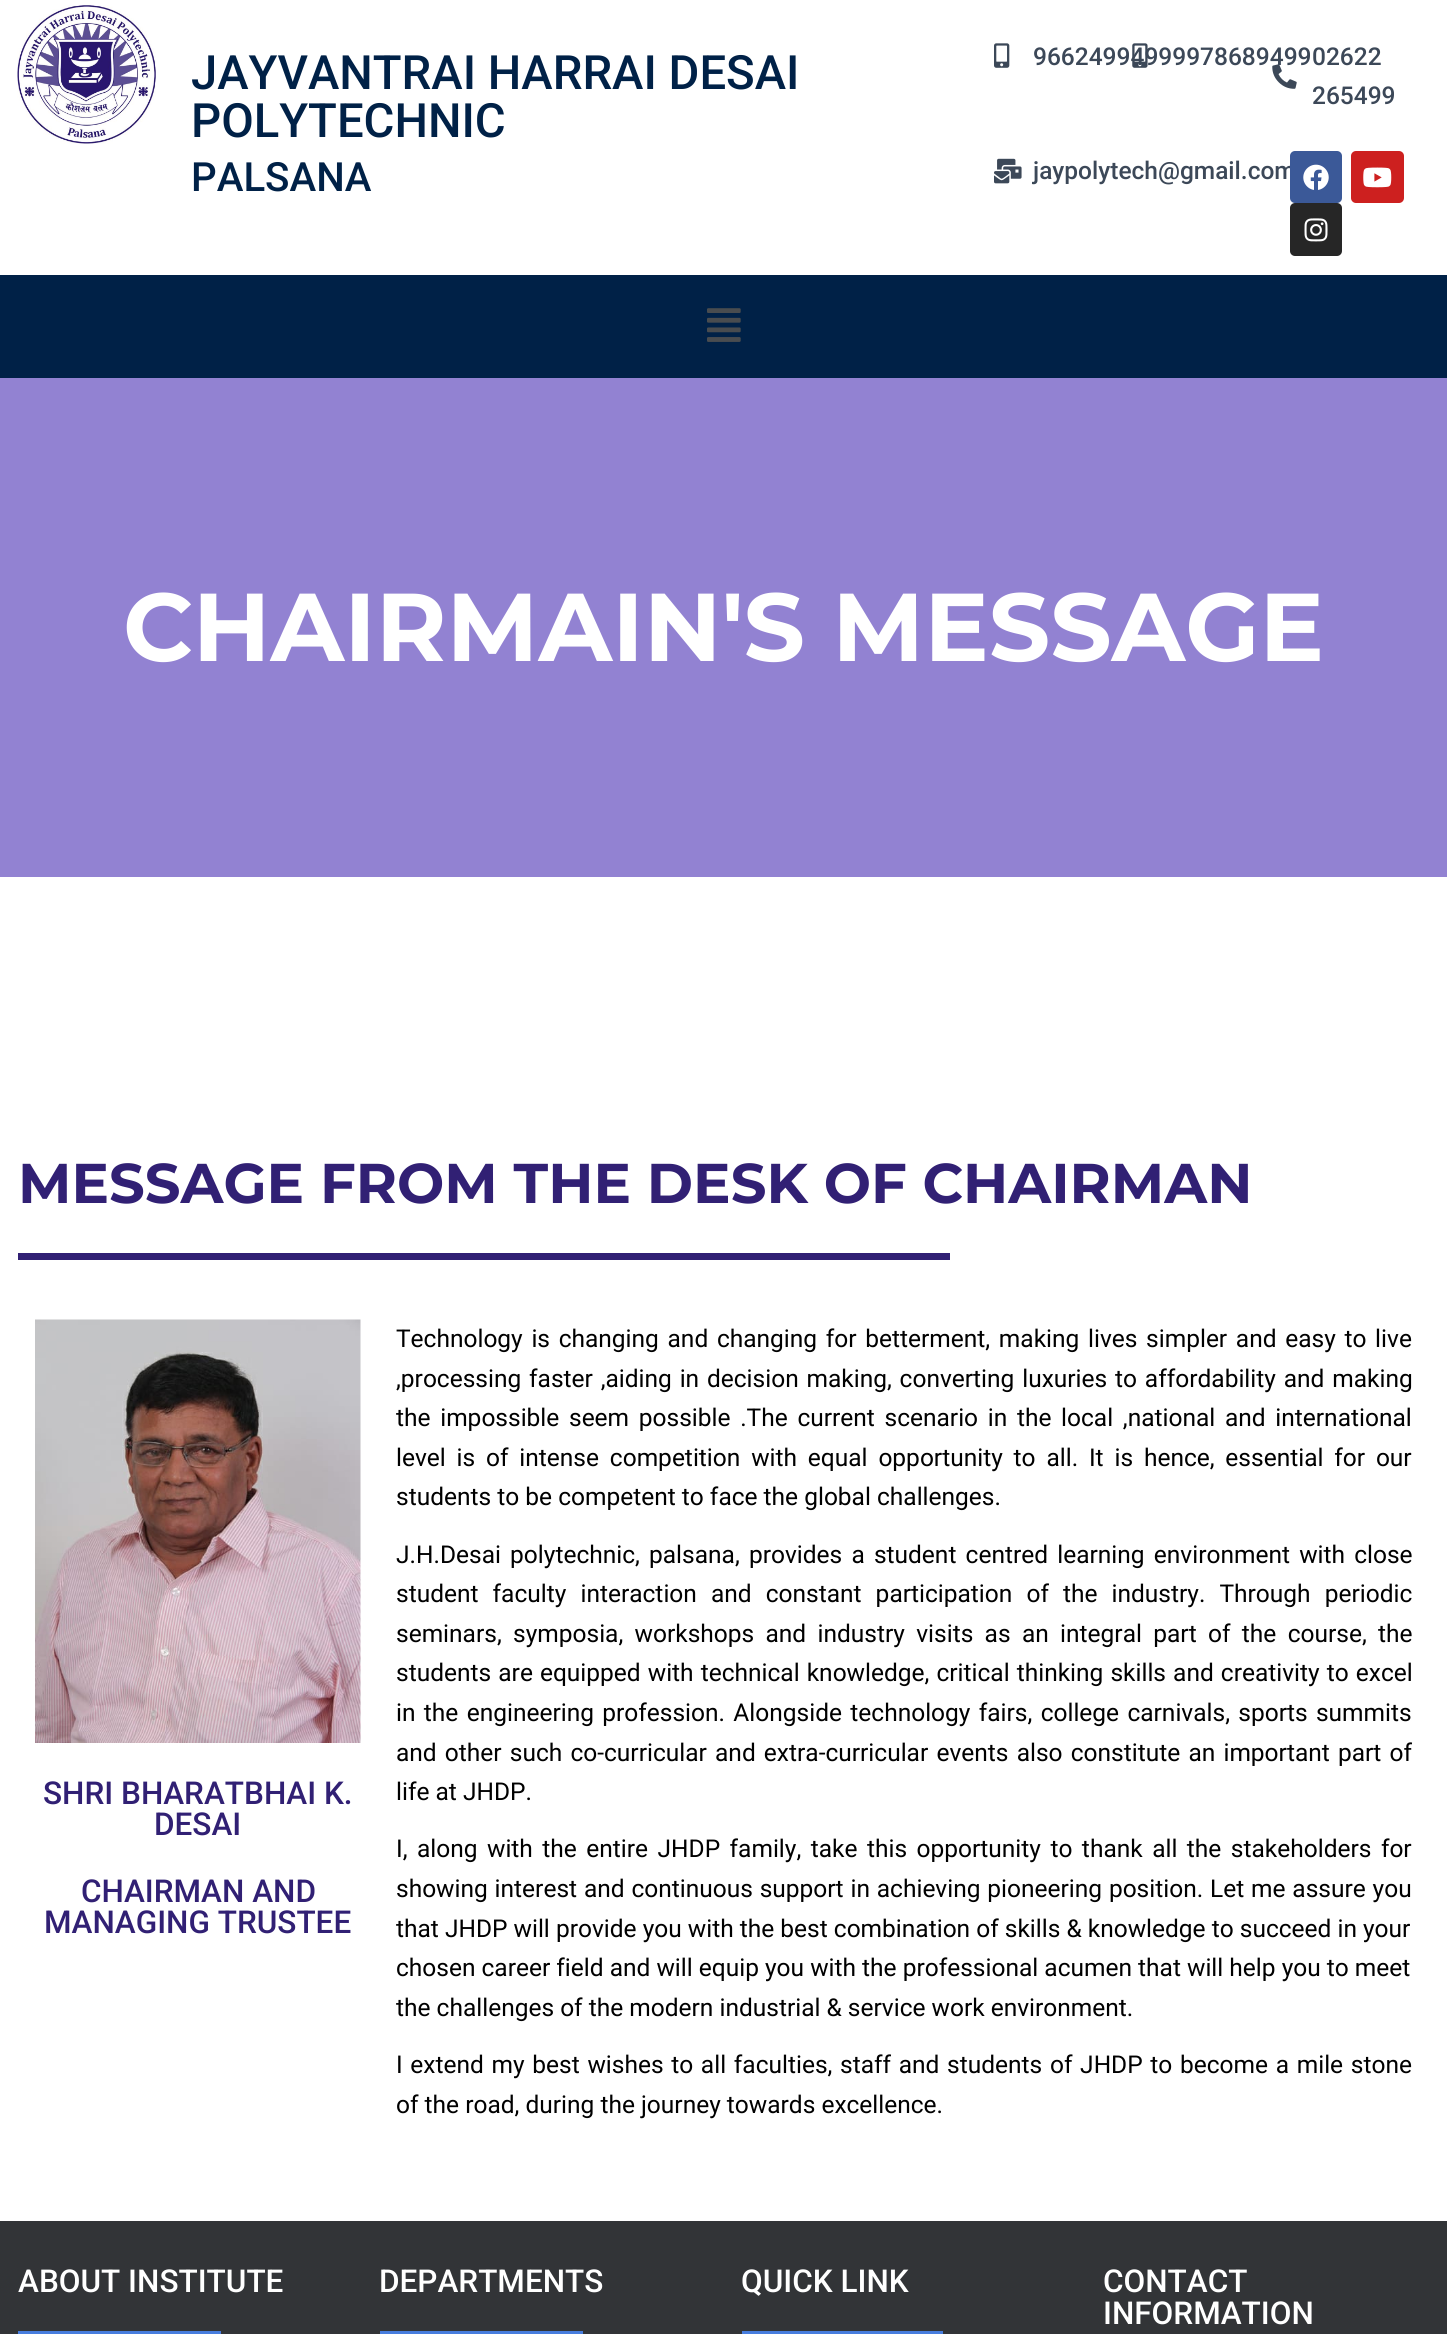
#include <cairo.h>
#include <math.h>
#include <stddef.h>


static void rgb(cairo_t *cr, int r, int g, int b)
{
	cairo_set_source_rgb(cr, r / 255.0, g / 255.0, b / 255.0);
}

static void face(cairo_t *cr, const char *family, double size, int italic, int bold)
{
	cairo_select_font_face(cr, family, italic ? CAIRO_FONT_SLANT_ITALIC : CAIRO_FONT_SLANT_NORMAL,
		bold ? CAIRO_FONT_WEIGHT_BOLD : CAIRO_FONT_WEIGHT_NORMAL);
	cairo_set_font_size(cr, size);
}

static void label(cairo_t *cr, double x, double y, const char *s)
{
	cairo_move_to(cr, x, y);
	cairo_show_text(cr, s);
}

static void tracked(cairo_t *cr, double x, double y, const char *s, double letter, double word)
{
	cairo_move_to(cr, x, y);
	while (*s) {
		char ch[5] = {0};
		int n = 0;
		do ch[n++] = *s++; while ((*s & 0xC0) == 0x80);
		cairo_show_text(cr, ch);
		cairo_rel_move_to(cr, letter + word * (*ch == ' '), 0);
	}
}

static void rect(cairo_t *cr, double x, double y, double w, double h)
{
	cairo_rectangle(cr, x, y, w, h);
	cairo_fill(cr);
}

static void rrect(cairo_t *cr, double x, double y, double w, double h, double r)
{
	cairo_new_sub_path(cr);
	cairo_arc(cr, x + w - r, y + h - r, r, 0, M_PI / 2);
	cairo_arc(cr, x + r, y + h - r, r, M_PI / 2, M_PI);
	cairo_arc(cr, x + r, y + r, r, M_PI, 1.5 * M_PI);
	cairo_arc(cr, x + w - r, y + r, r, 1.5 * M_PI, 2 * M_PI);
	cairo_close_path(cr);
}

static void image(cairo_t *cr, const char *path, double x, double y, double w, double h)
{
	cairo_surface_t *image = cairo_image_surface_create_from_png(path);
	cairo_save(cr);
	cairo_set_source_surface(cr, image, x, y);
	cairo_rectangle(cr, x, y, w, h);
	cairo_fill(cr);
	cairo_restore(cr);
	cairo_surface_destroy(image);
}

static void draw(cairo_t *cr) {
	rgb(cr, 146, 130, 210);
	cairo_paint(cr);
	rgb(cr, 255, 255, 255);
	rect(cr, 0, 0, 1447, 275);
	image(cr, "image0.png", 17, 5, 139, 139);
	face(cr, "Roboto Medium", 47.25, 0, 0);
	rgb(cr, 0, 33, 71);
	label(cr, 191, 89, "JAYVANTRAI HARRAI DESAI");
	label(cr, 191, 137, "POLYTECHNIC");
	face(cr, "Roboto Medium", 40.25, 0, 0);
	label(cr, 191, 191, "PALSANA");
	face(cr, "Roboto Medium", 24.5, 0, 0);
	rgb(cr, 60, 72, 88);
	label(cr, 1033, 65, "96624994999978689499");
	image(cr, "image1.png", 1132, 43, 16, 25);
	image(cr, "image2.png", 994, 43, 16, 25);
	image(cr, "image3.png", 1272, 64, 25, 25);
	label(cr, 1312, 65, "02622");
	label(cr, 1312, 104, "265499");
	image(cr, "image4.png", 994, 158, 28, 26);
	label(cr, 1033, 179, "jaypolytech@gmail.com");
	rgb(cr, 59, 89, 152);
	rrect(cr, 1290, 151, 52, 52, 5);
	cairo_fill(cr);
	image(cr, "image5.png", 1303, 164, 26, 26);
	rgb(cr, 205, 32, 31);
	rrect(cr, 1351, 151, 53, 52, 5);
	cairo_fill(cr);
	image(cr, "image6.png", 1363, 167, 29, 21);
	rgb(cr, 38, 38, 38);
	rrect(cr, 1290, 203, 52, 53, 5);
	cairo_fill(cr);
	image(cr, "image7.png", 1304, 218, 24, 24);
	rgb(cr, 0, 33, 71);
	rect(cr, 0, 275, 1447, 103);
	image(cr, "image8.png", 707, 308, 34, 34);
	face(cr, "Montserrat", 96.25, 0, 1);
	rgb(cr, 255, 255, 255);
	label(cr, 123, 661, "CHAIRMAIN'S MESSAGE");
	rect(cr, 0, 877, 1447, 1344);
	face(cr, "Montserrat", 56, 0, 1);
	rgb(cr, 49, 32, 116);
	label(cr, 18, 1203, "MESSAGE FROM THE DESK OF CHAIRMAN");
	rect(cr, 18, 1253, 932, 7);
	image(cr, "image9.png", 35, 1319, 326, 424);
	face(cr, "Roboto Medium", 31.5, 0, 0);
	label(cr, 43, 1804, "SHRI BHARATBHAI K.");
	label(cr, 154, 1835, "DESAI");
	label(cr, 81, 1902, "CHAIRMAN AND");
	label(cr, 44, 1933, "MANAGING TRUSTEE");
	face(cr, "Roboto", 24.5, 0, 0);
	rgb(cr, 0, 0, 0);
	tracked(cr, 396, 1347, "Technology is changing and changing for betterment, making lives simpler and easy to live", 0, 2.6);
	tracked(cr, 396, 1387, ",processing faster ,aiding in decision making, converting luxuries to affordability and making", 0, 1.75);
	tracked(cr, 396, 1426, "the impossible seem possible .The current scenario in the local ,national and international", 0, 3.6);
	tracked(cr, 396, 1466, "level is of intense competition with equal opportunity to all. It is hence, essential for our", 0, 4.75);
	label(cr, 396, 1505, "students to be competent to face the global challenges.");
	tracked(cr, 396, 1563, "J.H.Desai polytechnic, palsana, provides a student centred learning environment with close", 0, 3.1);
	tracked(cr, 396, 1602, "student faculty interaction and constant participation of the industry. Through periodic", 0, 8);
	tracked(cr, 396, 1642, "seminars, symposia, workshops and industry visits as an integral part of the course, the", 0, 5.25);
	tracked(cr, 396, 1681, "students are equipped with technical knowledge, critical thinking skills and creativity to excel", 0, 1);
	tracked(cr, 396, 1721, "in the engineering profession. Alongside technology fairs, college carnivals, sports summits", 0, 2.25);
	tracked(cr, 396, 1761, "and other such co-curricular and extra-curricular events also constitute an important part of", 0, 2.1);
	label(cr, 396, 1800, "life at JHDP.");
	tracked(cr, 396, 1857, "I, along with the entire JHDP family, take this opportunity to thank all the stakeholders for", 0, 3.4);
	tracked(cr, 396, 1897, "showing interest and continuous support in achieving pioneering position. Let me assure you", 0, 0.75);
	label(cr, 396, 1937, "that JHDP will provide you with the best combination of skills & knowledge to succeed in your");
	label(cr, 396, 1976, "chosen career field and will equip you with the professional acumen that will help you to meet");
	label(cr, 396, 2016, "the challenges of the modern industrial & service work environment.");
	tracked(cr, 396, 2073, "I extend my best wishes to all faculties, staff and students of JHDP to become a mile stone", 0, 1.6);
	label(cr, 396, 2113, "of the road, during the journey towards excellence.");
	rgb(cr, 50, 52, 55);
	rect(cr, 0, 2221, 1447, 113);
	face(cr, "Roboto Medium", 31.5, 0, 0);
	rgb(cr, 255, 255, 255);
	label(cr, 18, 2292, "ABOUT INSTITUTE");
	rgb(cr, 71, 125, 222);
	rect(cr, 18, 2331, 203, 3);
	rgb(cr, 255, 255, 255);
	label(cr, 379, 2292, "DEPARTMENTS");
	rgb(cr, 71, 125, 222);
	rect(cr, 380, 2331, 203, 3);
	rgb(cr, 255, 255, 255);
	label(cr, 741, 2292, "QUICK LINK");
	rgb(cr, 71, 125, 222);
	rect(cr, 742, 2331, 201, 3);
	rgb(cr, 255, 255, 255);
	label(cr, 1103, 2292, "CONTACT");
	label(cr, 1103, 2324, "INFORMATION");
}

int main(void) {
	cairo_surface_t *surface = cairo_image_surface_create(CAIRO_FORMAT_RGB24, 1447, 2334);
	cairo_t *cr = cairo_create(surface);
	cairo_font_options_t *options = cairo_font_options_create();
	cairo_font_options_set_hint_metrics(options, CAIRO_HINT_METRICS_OFF);
	cairo_font_options_set_hint_style(options, CAIRO_HINT_STYLE_NONE);
	cairo_set_font_options(cr, options);
	cairo_set_miter_limit(cr, 4);
	draw(cr);
	cairo_surface_write_to_png(surface, "render.png");
	cairo_font_options_destroy(options);
	cairo_destroy(cr);
	cairo_surface_destroy(surface);
	return 0;
}
